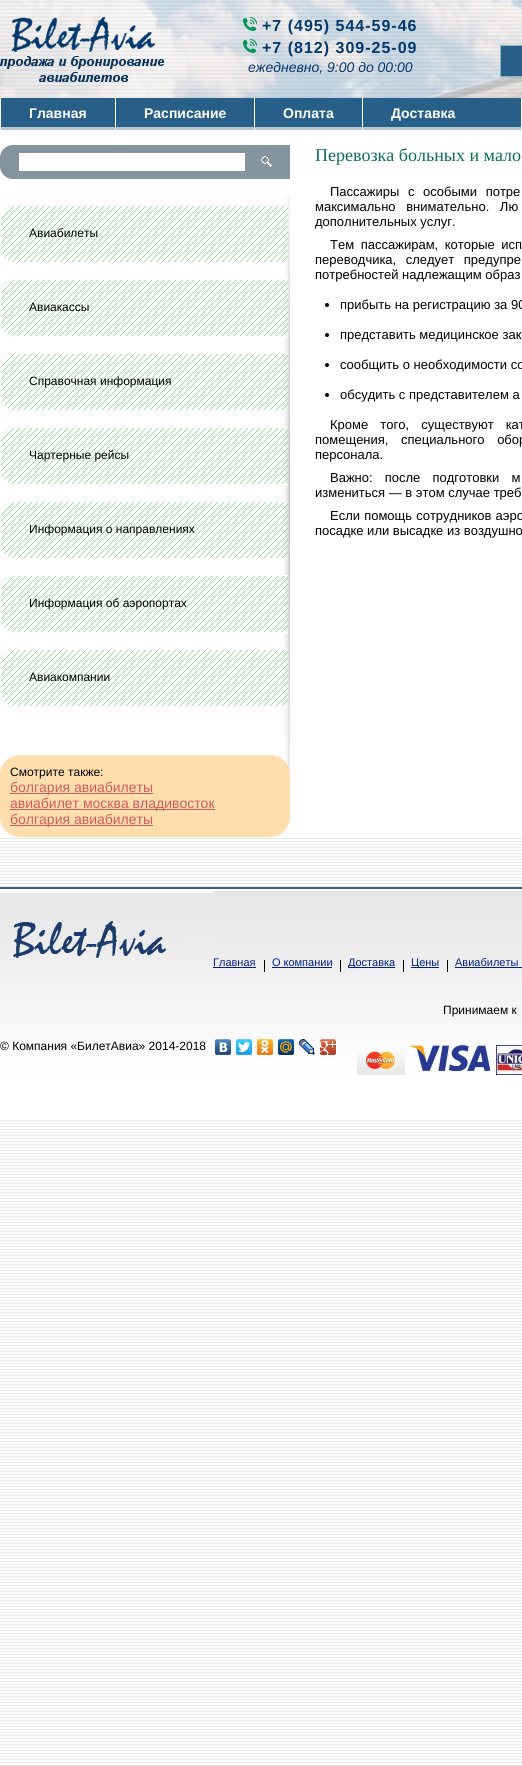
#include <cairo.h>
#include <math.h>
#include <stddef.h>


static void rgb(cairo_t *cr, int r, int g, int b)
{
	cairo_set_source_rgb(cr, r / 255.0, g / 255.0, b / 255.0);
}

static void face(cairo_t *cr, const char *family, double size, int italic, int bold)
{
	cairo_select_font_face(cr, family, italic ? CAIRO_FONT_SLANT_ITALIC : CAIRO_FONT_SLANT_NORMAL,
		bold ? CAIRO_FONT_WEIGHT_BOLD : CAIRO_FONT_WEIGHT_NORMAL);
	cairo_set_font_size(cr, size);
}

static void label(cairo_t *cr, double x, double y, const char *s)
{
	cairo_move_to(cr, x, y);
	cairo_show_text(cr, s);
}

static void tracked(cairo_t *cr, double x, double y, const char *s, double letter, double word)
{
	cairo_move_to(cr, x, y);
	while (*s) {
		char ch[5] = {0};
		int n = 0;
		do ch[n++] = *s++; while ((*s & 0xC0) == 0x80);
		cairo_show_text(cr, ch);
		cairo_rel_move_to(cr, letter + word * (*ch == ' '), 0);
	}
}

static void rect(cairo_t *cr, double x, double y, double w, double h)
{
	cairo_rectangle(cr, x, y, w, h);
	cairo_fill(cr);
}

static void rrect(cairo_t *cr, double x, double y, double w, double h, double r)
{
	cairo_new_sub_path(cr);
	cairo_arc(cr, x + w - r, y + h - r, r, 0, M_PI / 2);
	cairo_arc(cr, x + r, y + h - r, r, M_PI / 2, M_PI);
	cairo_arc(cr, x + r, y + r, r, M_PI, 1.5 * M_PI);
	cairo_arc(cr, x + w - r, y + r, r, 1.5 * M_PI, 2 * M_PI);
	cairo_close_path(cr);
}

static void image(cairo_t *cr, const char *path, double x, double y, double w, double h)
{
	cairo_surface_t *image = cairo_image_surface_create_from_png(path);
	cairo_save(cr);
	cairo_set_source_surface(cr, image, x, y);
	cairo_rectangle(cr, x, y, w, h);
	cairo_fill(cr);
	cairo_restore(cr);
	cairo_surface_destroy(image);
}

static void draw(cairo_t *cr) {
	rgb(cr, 255, 255, 255);
	cairo_paint(cr);
	image(cr, "image0.png", 0, 838, 522, 928);
	image(cr, "image1.png", 0, 0, 522, 98);
	image(cr, "image2.png", 0, 16, 164, 66);
	image(cr, "image3.png", 243, 17, 14, 14);
	face(cr, "Liberation Sans", 16, 0, 1);
	rgb(cr, 0, 56, 111);
	tracked(cr, 262, 31, "+7 (495) 544-59-46", 1, 0);
	image(cr, "image4.png", 243, 39, 14, 14);
	tracked(cr, 262, 53, "+7 (812) 309-25-09", 1, 0);
	face(cr, "Liberation Sans", 14, 1, 0);
	label(cr, 248, 72, "ежедневно, 9:00 до 00:00");
	rgb(cr, 40, 95, 137);
	cairo_rectangle(cr, 500.5, 45.5, 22, 31);
	cairo_fill_preserve(cr);
	rgb(cr, 131, 185, 185);
	cairo_set_line_width(cr, 1);
	cairo_stroke(cr);
	rgb(cr, 40, 95, 137);
	rect(cr, 1, 98, 520, 29);
	rgb(cr, 178, 200, 201);
	rect(cr, 0, 127, 522, 3);
	rgb(cr, 255, 255, 255);
	rect(cr, 521, 127, 1, 3);
	rect(cr, 0, 127, 1, 3);
	face(cr, "Liberation Sans", 14, 0, 1);
	label(cr, 29, 118, "Главная");
	rect(cr, 115, 98, 1, 32);
	label(cr, 144, 118, "Расписание");
	rect(cr, 254, 98, 1, 32);
	label(cr, 283, 118, "Оплата");
	rect(cr, 362, 98, 1, 32);
	label(cr, 391, 118, "Доставка");
	image(cr, "image5.png", 283, 195, 7, 580);
	rgb(cr, 132, 149, 159);
	cairo_new_path(cr);
	cairo_move_to(cr, 13, 145.5);
	cairo_line_to(cr, 289.5, 145.5);
	cairo_line_to(cr, 289.5, 178.5);
	cairo_line_to(cr, 13, 178.5);
	cairo_curve_to(cr, 6, 178.5, 0.5, 173, 0.5, 166);
	cairo_line_to(cr, 0.5, 158);
	cairo_curve_to(cr, 0.5, 151, 6, 145.5, 13, 145.5);
	cairo_close_path(cr);
	cairo_fill_preserve(cr);
	cairo_stroke(cr);
	rgb(cr, 255, 255, 255);
	rect(cr, 19, 153, 226, 18);
	image(cr, "image6.png", 261, 156, 11, 11);
	image(cr, "image7.png", 0, 205, 288, 58);
	cairo_set_fill_rule(cr, CAIRO_FILL_RULE_EVEN_ODD);
	cairo_new_path(cr);
	cairo_move_to(cr, 15, 205);
	cairo_line_to(cr, 288, 205);
	cairo_line_to(cr, 288, 263);
	cairo_line_to(cr, 15, 263);
	cairo_curve_to(cr, 7, 263, 0, 256, 0, 248);
	cairo_line_to(cr, 0, 220);
	cairo_curve_to(cr, 0, 212, 7, 205, 15, 205);
	cairo_close_path(cr);
	cairo_move_to(cr, 15, 206);
	cairo_line_to(cr, 288, 206);
	cairo_line_to(cr, 288, 262);
	cairo_line_to(cr, 15, 262);
	cairo_curve_to(cr, 7, 262, 1, 256, 1, 248);
	cairo_line_to(cr, 1, 220);
	cairo_curve_to(cr, 1, 212, 7, 206, 15, 206);
	cairo_close_path(cr);
	cairo_fill(cr);
	face(cr, "Liberation Sans", 12, 0, 0);
	rgb(cr, 0, 0, 0);
	label(cr, 29, 237, "Авиабилеты");
	image(cr, "image8.png", 0, 279, 288, 58);
	rgb(cr, 255, 255, 255);
	cairo_new_path(cr);
	cairo_move_to(cr, 15, 279);
	cairo_line_to(cr, 288, 279);
	cairo_line_to(cr, 288, 337);
	cairo_line_to(cr, 15, 337);
	cairo_curve_to(cr, 7, 337, 0, 330, 0, 322);
	cairo_line_to(cr, 0, 294);
	cairo_curve_to(cr, 0, 286, 7, 279, 15, 279);
	cairo_close_path(cr);
	cairo_move_to(cr, 15, 280);
	cairo_line_to(cr, 288, 280);
	cairo_line_to(cr, 288, 336);
	cairo_line_to(cr, 15, 336);
	cairo_curve_to(cr, 7, 336, 1, 330, 1, 322);
	cairo_line_to(cr, 1, 294);
	cairo_curve_to(cr, 1, 286, 7, 280, 15, 280);
	cairo_close_path(cr);
	cairo_fill(cr);
	rgb(cr, 0, 0, 0);
	label(cr, 29, 311, "Авиакассы");
	image(cr, "image9.png", 0, 353, 288, 58);
	rgb(cr, 255, 255, 255);
	cairo_new_path(cr);
	cairo_move_to(cr, 15, 353);
	cairo_line_to(cr, 288, 353);
	cairo_line_to(cr, 288, 411);
	cairo_line_to(cr, 15, 411);
	cairo_curve_to(cr, 7, 411, 0, 404, 0, 396);
	cairo_line_to(cr, 0, 368);
	cairo_curve_to(cr, 0, 360, 7, 353, 15, 353);
	cairo_close_path(cr);
	cairo_move_to(cr, 15, 354);
	cairo_line_to(cr, 288, 354);
	cairo_line_to(cr, 288, 410);
	cairo_line_to(cr, 15, 410);
	cairo_curve_to(cr, 7, 410, 1, 404, 1, 396);
	cairo_line_to(cr, 1, 368);
	cairo_curve_to(cr, 1, 360, 7, 354, 15, 354);
	cairo_close_path(cr);
	cairo_fill(cr);
	rgb(cr, 0, 0, 0);
	label(cr, 29, 385, "Справочная информация");
	image(cr, "image10.png", 0, 427, 288, 58);
	rgb(cr, 255, 255, 255);
	cairo_new_path(cr);
	cairo_move_to(cr, 15, 427);
	cairo_line_to(cr, 288, 427);
	cairo_line_to(cr, 288, 485);
	cairo_line_to(cr, 15, 485);
	cairo_curve_to(cr, 7, 485, 0, 478, 0, 470);
	cairo_line_to(cr, 0, 442);
	cairo_curve_to(cr, 0, 434, 7, 427, 15, 427);
	cairo_close_path(cr);
	cairo_move_to(cr, 15, 428);
	cairo_line_to(cr, 288, 428);
	cairo_line_to(cr, 288, 484);
	cairo_line_to(cr, 15, 484);
	cairo_curve_to(cr, 7, 484, 1, 478, 1, 470);
	cairo_line_to(cr, 1, 442);
	cairo_curve_to(cr, 1, 434, 7, 428, 15, 428);
	cairo_close_path(cr);
	cairo_fill(cr);
	rgb(cr, 0, 0, 0);
	label(cr, 29, 459, "Чартерные рейсы");
	image(cr, "image11.png", 0, 501, 288, 58);
	rgb(cr, 255, 255, 255);
	cairo_new_path(cr);
	cairo_move_to(cr, 15, 501);
	cairo_line_to(cr, 288, 501);
	cairo_line_to(cr, 288, 559);
	cairo_line_to(cr, 15, 559);
	cairo_curve_to(cr, 7, 559, 0, 552, 0, 544);
	cairo_line_to(cr, 0, 516);
	cairo_curve_to(cr, 0, 508, 7, 501, 15, 501);
	cairo_close_path(cr);
	cairo_move_to(cr, 15, 502);
	cairo_line_to(cr, 288, 502);
	cairo_line_to(cr, 288, 558);
	cairo_line_to(cr, 15, 558);
	cairo_curve_to(cr, 7, 558, 1, 552, 1, 544);
	cairo_line_to(cr, 1, 516);
	cairo_curve_to(cr, 1, 508, 7, 502, 15, 502);
	cairo_close_path(cr);
	cairo_fill(cr);
	rgb(cr, 0, 0, 0);
	label(cr, 29, 533, "Информация о направлениях");
	image(cr, "image12.png", 0, 575, 288, 58);
	rgb(cr, 255, 255, 255);
	cairo_new_path(cr);
	cairo_move_to(cr, 15, 575);
	cairo_line_to(cr, 288, 575);
	cairo_line_to(cr, 288, 633);
	cairo_line_to(cr, 15, 633);
	cairo_curve_to(cr, 7, 633, 0, 626, 0, 618);
	cairo_line_to(cr, 0, 590);
	cairo_curve_to(cr, 0, 582, 7, 575, 15, 575);
	cairo_close_path(cr);
	cairo_move_to(cr, 15, 576);
	cairo_line_to(cr, 288, 576);
	cairo_line_to(cr, 288, 632);
	cairo_line_to(cr, 15, 632);
	cairo_curve_to(cr, 7, 632, 1, 626, 1, 618);
	cairo_line_to(cr, 1, 590);
	cairo_curve_to(cr, 1, 582, 7, 576, 15, 576);
	cairo_close_path(cr);
	cairo_fill(cr);
	rgb(cr, 0, 0, 0);
	label(cr, 29, 607, "Информация об аэропортах");
	image(cr, "image13.png", 0, 649, 288, 58);
	rgb(cr, 255, 255, 255);
	cairo_new_path(cr);
	cairo_move_to(cr, 15, 649);
	cairo_line_to(cr, 288, 649);
	cairo_line_to(cr, 288, 707);
	cairo_line_to(cr, 15, 707);
	cairo_curve_to(cr, 7, 707, 0, 700, 0, 692);
	cairo_line_to(cr, 0, 664);
	cairo_curve_to(cr, 0, 656, 7, 649, 15, 649);
	cairo_close_path(cr);
	cairo_move_to(cr, 15, 650);
	cairo_line_to(cr, 288, 650);
	cairo_line_to(cr, 288, 706);
	cairo_line_to(cr, 15, 706);
	cairo_curve_to(cr, 7, 706, 1, 700, 1, 692);
	cairo_line_to(cr, 1, 664);
	cairo_curve_to(cr, 1, 656, 7, 650, 15, 650);
	cairo_close_path(cr);
	cairo_fill(cr);
	rgb(cr, 0, 0, 0);
	label(cr, 29, 681, "Авиакомпании");
	rgb(cr, 255, 222, 173);
	rrect(cr, 0, 755, 290, 82, 20);
	cairo_fill(cr);
	rgb(cr, 0, 0, 0);
	label(cr, 10, 776, "Смотрите также:");
	rgb(cr, 205, 92, 92);
	rect(cr, 10, 793, 143, 1);
	face(cr, "Liberation Sans", 14, 0, 0);
	label(cr, 10, 792, "болгария авиабилеты");
	rect(cr, 10, 809, 205, 1);
	label(cr, 10, 808, "авиабилет москва владивосток");
	rect(cr, 10, 825, 143, 1);
	label(cr, 10, 824, "болгария авиабилеты");
	face(cr, "Liberation Serif", 18, 0, 0);
	rgb(cr, 11, 112, 83);
	label(cr, 315, 161, "Перевозка больных и мало");
	face(cr, "Liberation Sans", 13, 0, 0);
	rgb(cr, 0, 0, 0);
	tracked(cr, 330, 196, "Пассажиры с особыми потре", 0, 5);
	tracked(cr, 315, 211, "максимально внимательно. Лю", 0, 7);
	label(cr, 315, 226, "дополнительных услуг.");
	tracked(cr, 330, 249, "Тем пассажирам, которые исп", 0, 3);
	tracked(cr, 315, 264, "переводчика, следует предупре", 0, 6);
	label(cr, 315, 279, "потребностей надлежащим образ");
	cairo_new_path(cr);
	cairo_arc(cr, 327, 305, 2, 0, 2 * M_PI);
	cairo_fill(cr);
	label(cr, 340, 309, "прибыть на регистрацию за 90");
	cairo_new_path(cr);
	cairo_arc(cr, 327, 335, 2, 0, 2 * M_PI);
	cairo_fill(cr);
	label(cr, 340, 339, "представить медицинское зак");
	cairo_new_path(cr);
	cairo_arc(cr, 327, 365, 2, 0, 2 * M_PI);
	cairo_fill(cr);
	label(cr, 340, 369, "сообщить о необходимости со");
	cairo_new_path(cr);
	cairo_arc(cr, 327, 395, 2, 0, 2 * M_PI);
	cairo_fill(cr);
	label(cr, 340, 399, "обсудить с представителем а");
	tracked(cr, 330, 429, "Кроме того, существуют кат", 0, 8.5);
	tracked(cr, 315, 444, "помещения, специального обор", 0, 9);
	label(cr, 315, 459, "персонала.");
	tracked(cr, 330, 482, "Важно: после подготовки м", 0, 8.5);
	label(cr, 315, 497, "измениться — в этом случае треб");
	tracked(cr, 330, 520, "Если помощь сотрудников аэро", 0, 0.5);
	label(cr, 315, 535, "посадке или высадке из воздушно");
	image(cr, "image14.png", 0, 889, 522, 229);
	rgb(cr, 64, 95, 134);
	rect(cr, 0, 887, 522, 2);
	image(cr, "image15.png", 0, 891, 213, 67);
	face(cr, "Liberation Sans", 11, 0, 0);
	rgb(cr, 0, 31, 146);
	label(cr, 213, 966, "Главная");
	rect(cr, 213, 967, 43, 1);
	rgb(cr, 0, 0, 0);
	rect(cr, 264, 960, 1, 12);
	rgb(cr, 0, 31, 146);
	label(cr, 272, 966, "О компании");
	rect(cr, 272, 967, 60, 1);
	rgb(cr, 0, 0, 0);
	rect(cr, 340, 960, 1, 12);
	rgb(cr, 0, 31, 146);
	rect(cr, 348, 967, 47, 1);
	label(cr, 348, 966, "Доставка");
	rgb(cr, 0, 0, 0);
	rect(cr, 403, 960, 1, 12);
	rgb(cr, 0, 31, 146);
	rect(cr, 411, 967, 28, 1);
	label(cr, 411, 966, "Цены");
	rgb(cr, 0, 0, 0);
	rect(cr, 447, 960, 1, 12);
	rgb(cr, 0, 31, 146);
	label(cr, 455, 966, "Авиабилеты");
	rect(cr, 455, 967, 67, 1);
	face(cr, "Liberation Sans", 12, 0, 0);
	rgb(cr, 0, 0, 0);
	label(cr, 443, 1014, "Принимаем к");
	image(cr, "image16.png", 357, 1051, 48, 24);
	image(cr, "image17.png", 410, 1045, 80, 26);
	image(cr, "image18.png", 496, 1045, 26, 30);
	label(cr, 0, 1050, "© Компания «БилетАвиа» 2014-2018");
	image(cr, "image19.png", 215, 1039, 16, 16);
	image(cr, "image20.png", 236, 1039, 16, 16);
	image(cr, "image21.png", 257, 1039, 16, 16);
	image(cr, "image22.png", 278, 1039, 16, 16);
	image(cr, "image23.png", 299, 1039, 16, 16);
	image(cr, "image24.png", 320, 1039, 16, 16);
}

int main(void) {
	cairo_surface_t *surface = cairo_image_surface_create(CAIRO_FORMAT_RGB24, 522, 1766);
	cairo_t *cr = cairo_create(surface);
	cairo_font_options_t *options = cairo_font_options_create();
	cairo_font_options_set_hint_metrics(options, CAIRO_HINT_METRICS_OFF);
	cairo_font_options_set_hint_style(options, CAIRO_HINT_STYLE_NONE);
	cairo_set_font_options(cr, options);
	cairo_set_miter_limit(cr, 4);
	draw(cr);
	cairo_surface_write_to_png(surface, "render.png");
	cairo_font_options_destroy(options);
	cairo_destroy(cr);
	cairo_surface_destroy(surface);
	return 0;
}
